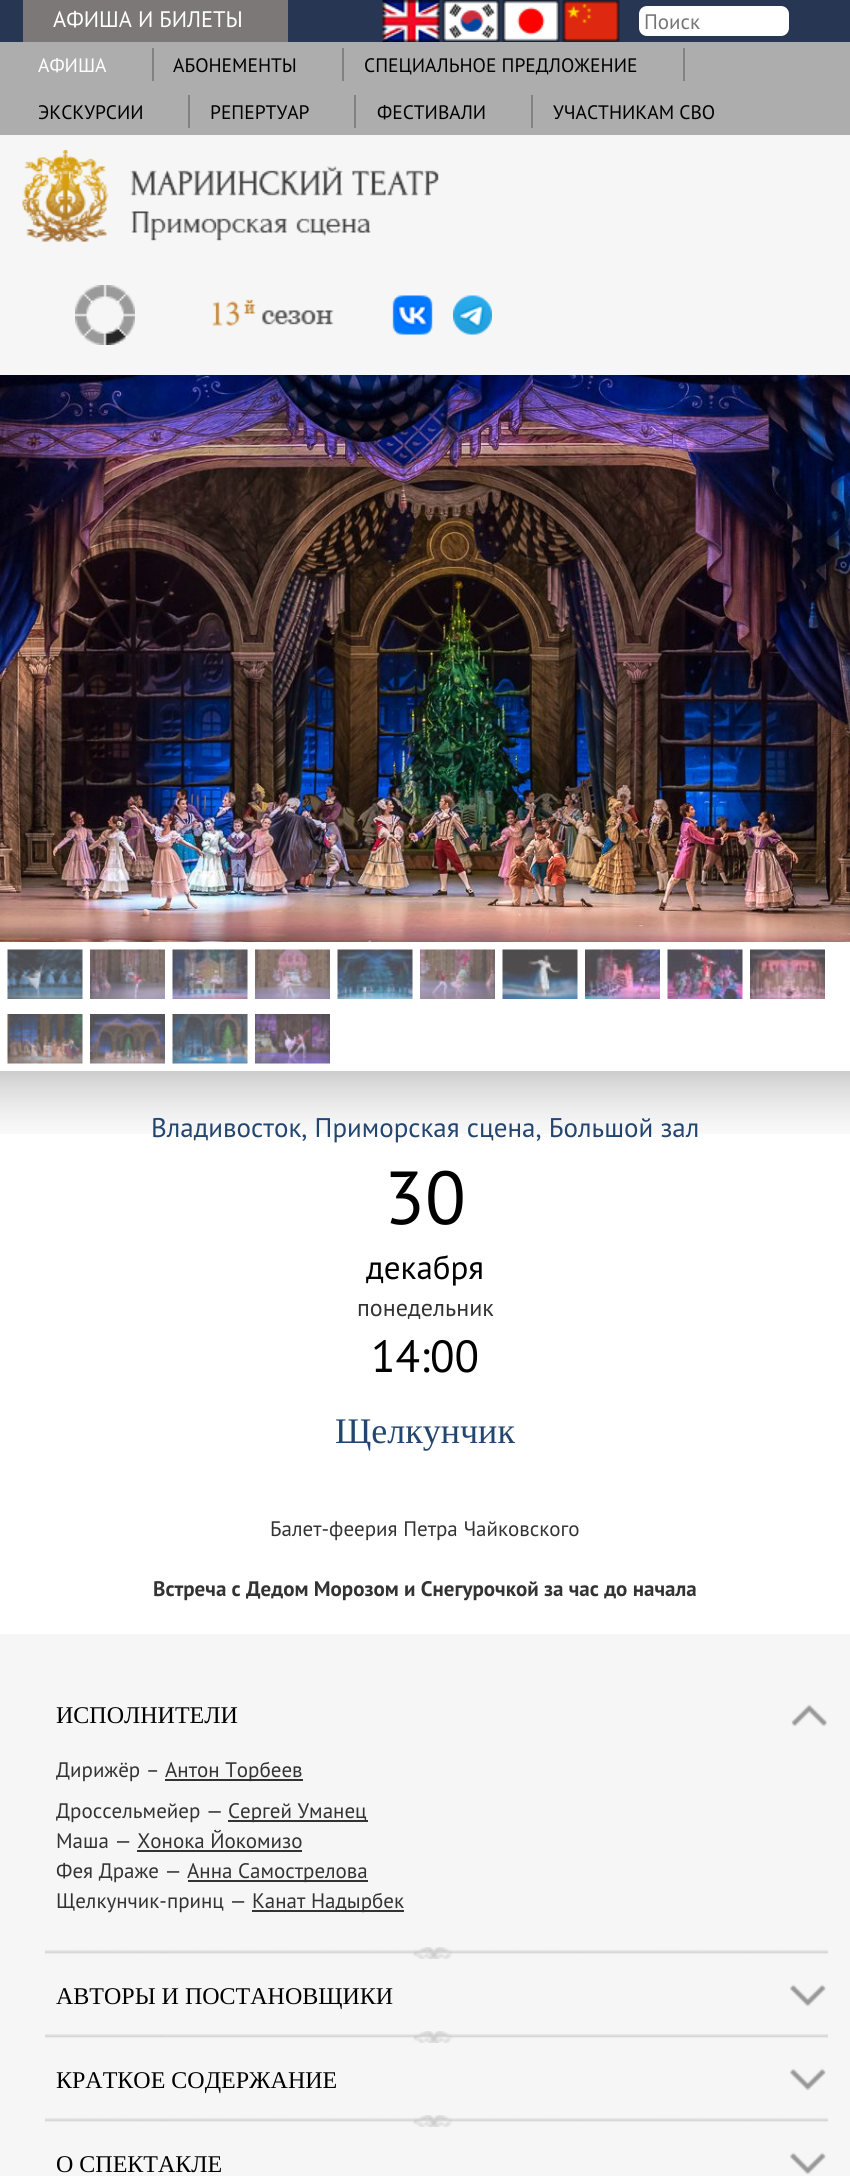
#include <cairo.h>
#include <math.h>
#include <stddef.h>


static void rgb(cairo_t *cr, int r, int g, int b)
{
	cairo_set_source_rgb(cr, r / 255.0, g / 255.0, b / 255.0);
}

static void face(cairo_t *cr, const char *family, double size, int italic, int bold)
{
	cairo_select_font_face(cr, family, italic ? CAIRO_FONT_SLANT_ITALIC : CAIRO_FONT_SLANT_NORMAL,
		bold ? CAIRO_FONT_WEIGHT_BOLD : CAIRO_FONT_WEIGHT_NORMAL);
	cairo_set_font_size(cr, size);
}

static void label(cairo_t *cr, double x, double y, const char *s)
{
	cairo_move_to(cr, x, y);
	cairo_show_text(cr, s);
}

static void rect(cairo_t *cr, double x, double y, double w, double h)
{
	cairo_rectangle(cr, x, y, w, h);
	cairo_fill(cr);
}

static void rrect(cairo_t *cr, double x, double y, double w, double h, double r)
{
	cairo_new_sub_path(cr);
	cairo_arc(cr, x + w - r, y + h - r, r, 0, M_PI / 2);
	cairo_arc(cr, x + r, y + h - r, r, M_PI / 2, M_PI);
	cairo_arc(cr, x + r, y + r, r, M_PI, 1.5 * M_PI);
	cairo_arc(cr, x + w - r, y + r, r, 1.5 * M_PI, 2 * M_PI);
	cairo_close_path(cr);
}

static void image(cairo_t *cr, const char *path, double x, double y, double w, double h)
{
	cairo_surface_t *image = cairo_image_surface_create_from_png(path);
	cairo_save(cr);
	cairo_set_source_surface(cr, image, x, y);
	cairo_rectangle(cr, x, y, w, h);
	cairo_fill(cr);
	cairo_restore(cr);
	cairo_surface_destroy(image);
}

static void draw(cairo_t *cr) {
	rgb(cr, 39, 54, 83);
	cairo_paint(cr);
	rgb(cr, 125, 120, 120);
	rect(cr, 23, 0, 265, 42);
	face(cr, "PT Sans", 22.5, 0, 0);
	rgb(cr, 255, 255, 255);
	label(cr, 53, 27, "АФИША И БИЛЕТЫ");
	image(cr, "image0.png", 382, 0, 58, 42);
	image(cr, "image1.png", 442, 0, 58, 42);
	image(cr, "image2.png", 502, 0, 58, 42);
	image(cr, "image3.png", 562, 0, 58, 42);
	rrect(cr, 639, 6, 150, 30, 8);
	cairo_fill(cr);
	face(cr, "PT Sans", 21, 0, 0);
	rgb(cr, 117, 117, 117);
	label(cr, 644, 29, "Поиск");
	rgb(cr, 173, 173, 173);
	rect(cr, 0, 42, 850, 93);
	face(cr, "PT Sans", 19.5, 0, 0);
	rgb(cr, 255, 255, 255);
	label(cr, 38, 72, "АФИША");
	rgb(cr, 130, 130, 130);
	rect(cr, 152, 48, 2, 33);
	rgb(cr, 0, 0, 0);
	label(cr, 173, 72, "АБОНЕМЕНТЫ");
	rgb(cr, 130, 130, 130);
	rect(cr, 342, 48, 2, 33);
	rgb(cr, 0, 0, 0);
	label(cr, 364, 72, "CПЕЦИАЛЬНОЕ ПРЕДЛОЖЕНИЕ");
	rgb(cr, 130, 130, 130);
	rect(cr, 683, 48, 2, 33);
	rgb(cr, 0, 0, 0);
	label(cr, 38, 119, "ЭКСКУРСИИ");
	rgb(cr, 130, 130, 130);
	rect(cr, 188, 95, 2, 33);
	rgb(cr, 0, 0, 0);
	label(cr, 210, 119, "РЕПЕРТУАР");
	rgb(cr, 130, 130, 130);
	rect(cr, 354, 95, 2, 33);
	rgb(cr, 0, 0, 0);
	label(cr, 377, 119, "ФЕСТИВАЛИ");
	rgb(cr, 130, 130, 130);
	rect(cr, 531, 95, 2, 33);
	rgb(cr, 0, 0, 0);
	label(cr, 553, 119, "УЧАСТНИКАМ СВО");
	rgb(cr, 246, 246, 246);
	rect(cr, 0, 135, 850, 240);
	image(cr, "image4.png", 22, 150, 417, 92);
	image(cr, "image5.png", 75, 285, 60, 60);
	image(cr, "image6.png", 212, 299, 122, 27);
	image(cr, "image7.png", 392, 295, 41, 40);
	image(cr, "image8.png", 453, 295, 39, 40);
	rgb(cr, 255, 255, 255);
	rect(cr, 0, 942, 850, 692);
	image(cr, "image9.png", 0, 375, 850, 567);
	image(cr, "image10.png", 7, 949, 76, 50);
	image(cr, "image11.png", 90, 949, 75, 50);
	image(cr, "image12.png", 172, 949, 76, 50);
	image(cr, "image13.png", 255, 949, 75, 50);
	image(cr, "image14.png", 337, 949, 76, 50);
	image(cr, "image15.png", 420, 949, 75, 50);
	image(cr, "image16.png", 502, 949, 76, 50);
	image(cr, "image17.png", 585, 949, 75, 50);
	image(cr, "image18.png", 667, 949, 76, 50);
	image(cr, "image19.png", 750, 949, 75, 50);
	image(cr, "image20.png", 7, 1014, 76, 50);
	image(cr, "image21.png", 90, 1014, 75, 50);
	image(cr, "image22.png", 172, 1014, 76, 50);
	image(cr, "image23.png", 255, 1014, 75, 50);
	image(cr, "image24.png", 0, 1071, 850, 63);
	face(cr, "PT Sans", 27, 0, 0);
	rgb(cr, 35, 70, 112);
	label(cr, 151, 1137, "Владивосток, Приморская сцена, Большой зал");
	face(cr, "PT Sans", 75, 0, 0);
	rgb(cr, 0, 0, 0);
	label(cr, 384, 1224, "30");
	face(cr, "PT Sans", 33, 0, 0);
	label(cr, 366, 1279, "декабря");
	face(cr, "PT Sans", 24, 0, 0);
	rgb(cr, 51, 51, 51);
	label(cr, 357, 1316, "понедельник");
	face(cr, "PT Sans", 45, 0, 0);
	rgb(cr, 0, 0, 0);
	label(cr, 371, 1372, "14:00");
	face(cr, "Liberation Serif", 36, 0, 0);
	rgb(cr, 35, 70, 112);
	label(cr, 335, 1443, "Щелкунчик");
	face(cr, "PT Sans", 21, 0, 0);
	rgb(cr, 51, 51, 51);
	label(cr, 270, 1536, "Балет-феерия Петра Чайковского");
	face(cr, "PT Sans", 21, 0, 1);
	label(cr, 153, 1596, "Встреча с Дедом Морозом и Снегурочкой за час до начала");
	rgb(cr, 246, 246, 246);
	rect(cr, 0, 1634, 850, 542);
	image(cr, "image25.png", 791, 1704, 36, 23);
	face(cr, "Liberation Serif", 24, 0, 0);
	rgb(cr, 0, 0, 0);
	label(cr, 56, 1723, "ИСПОЛНИТЕЛИ");
	image(cr, "image26.png", 45, 1947, 783, 12);
	face(cr, "PT Sans", 21, 0, 0);
	rgb(cr, 51, 51, 51);
	label(cr, 56, 1777, "Дирижёр –");
	rect(cr, 165, 1779, 138, 2);
	label(cr, 165, 1777, "Антон Торбеев");
	label(cr, 56, 1818, "Дроссельмейер —");
	rect(cr, 228, 1820, 140, 2);
	label(cr, 228, 1818, "Сергей Уманец");
	label(cr, 56, 1848, "Маша — Хонока Йокомизо");
	rect(cr, 137, 1850, 165, 2);
	label(cr, 56, 1878, "Фея Драже —");
	rect(cr, 188, 1880, 180, 2);
	label(cr, 187, 1878, "Анна Самострелова");
	label(cr, 56, 1908, "Щелкунчик-принц —");
	rect(cr, 252, 1910, 152, 2);
	label(cr, 252, 1908, "Канат Надырбек");
	image(cr, "image27.png", 790, 1984, 36, 23);
	face(cr, "Liberation Serif", 24, 0, 0);
	rgb(cr, 0, 0, 0);
	label(cr, 56, 2004, "АВТОРЫ И ПОСТАНОВЩИКИ");
	image(cr, "image26.png", 45, 2031, 783, 12);
	image(cr, "image27.png", 790, 2068, 36, 23);
	label(cr, 56, 2088, "КРАТКОЕ СОДЕРЖАНИЕ");
	image(cr, "image26.png", 45, 2115, 783, 12);
	image(cr, "image27.png", 790, 2152, 36, 23);
	label(cr, 56, 2172, "О СПЕКТАКЛЕ");
}

int main(void) {
	cairo_surface_t *surface = cairo_image_surface_create(CAIRO_FORMAT_RGB24, 850, 2176);
	cairo_t *cr = cairo_create(surface);
	cairo_font_options_t *options = cairo_font_options_create();
	cairo_font_options_set_hint_metrics(options, CAIRO_HINT_METRICS_OFF);
	cairo_font_options_set_hint_style(options, CAIRO_HINT_STYLE_NONE);
	cairo_set_font_options(cr, options);
	cairo_set_miter_limit(cr, 4);
	draw(cr);
	cairo_surface_write_to_png(surface, "render.png");
	cairo_font_options_destroy(options);
	cairo_destroy(cr);
	cairo_surface_destroy(surface);
	return 0;
}
